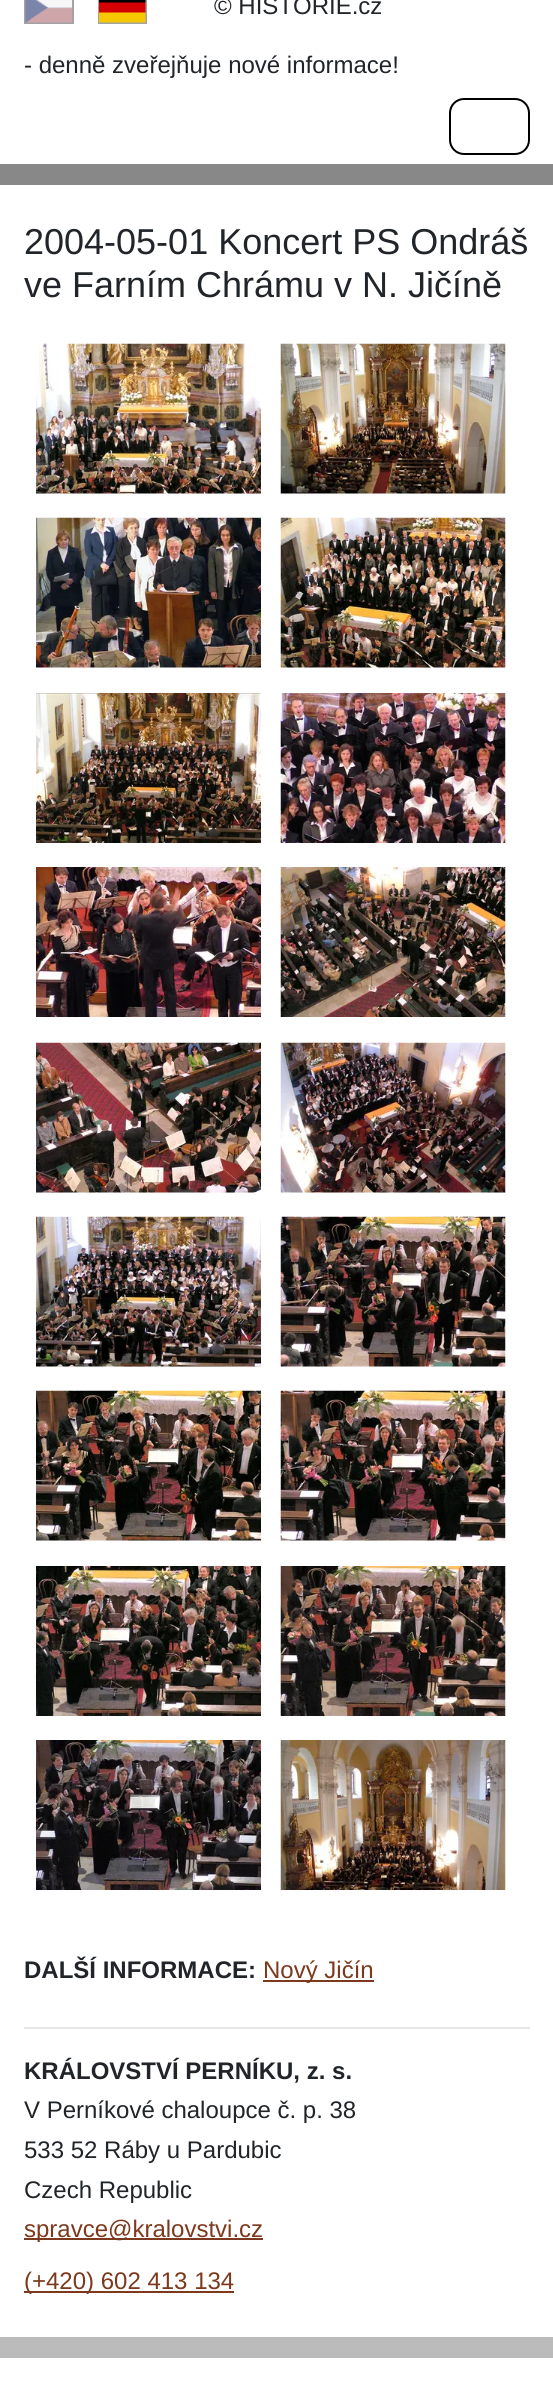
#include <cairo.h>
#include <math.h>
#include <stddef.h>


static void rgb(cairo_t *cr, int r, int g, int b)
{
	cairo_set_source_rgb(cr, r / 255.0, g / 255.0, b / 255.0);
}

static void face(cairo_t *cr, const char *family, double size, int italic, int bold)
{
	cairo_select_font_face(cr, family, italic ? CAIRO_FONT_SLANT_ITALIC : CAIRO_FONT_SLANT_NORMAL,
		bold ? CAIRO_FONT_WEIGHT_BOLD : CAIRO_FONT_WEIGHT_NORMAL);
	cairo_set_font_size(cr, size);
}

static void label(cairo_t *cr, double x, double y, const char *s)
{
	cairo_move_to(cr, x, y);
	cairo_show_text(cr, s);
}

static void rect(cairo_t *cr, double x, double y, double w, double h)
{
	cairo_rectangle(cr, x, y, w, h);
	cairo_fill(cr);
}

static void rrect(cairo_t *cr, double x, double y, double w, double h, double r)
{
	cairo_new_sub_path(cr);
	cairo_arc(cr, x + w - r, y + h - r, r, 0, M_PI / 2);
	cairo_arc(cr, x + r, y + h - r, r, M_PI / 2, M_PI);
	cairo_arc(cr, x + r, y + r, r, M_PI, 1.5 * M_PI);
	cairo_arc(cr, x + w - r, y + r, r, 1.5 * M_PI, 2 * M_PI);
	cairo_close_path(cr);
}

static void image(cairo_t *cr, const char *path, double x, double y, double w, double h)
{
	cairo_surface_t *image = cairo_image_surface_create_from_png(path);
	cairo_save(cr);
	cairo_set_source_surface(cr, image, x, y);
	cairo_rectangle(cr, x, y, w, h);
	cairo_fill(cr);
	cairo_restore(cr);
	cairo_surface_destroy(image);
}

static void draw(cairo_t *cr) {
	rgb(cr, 255, 255, 255);
	cairo_paint(cr);
	rgb(cr, 136, 136, 136);
	rect(cr, 0, 164, 553, 21);
	cairo_rectangle(cr, 25, -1, 48, 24);
	rgb(cr, 163, 163, 163);
	cairo_stroke(cr);
	cairo_rectangle(cr, 99, -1, 47, 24);
	cairo_stroke(cr);
	image(cr, "image0.png", 25, 0, 47, 23);
	image(cr, "image1.png", 99, 0, 47, 23);
	face(cr, "Liberation Sans", 24, 0, 0);
	rgb(cr, 33, 37, 41);
	label(cr, 214, 14, "© HISTORIE.cz");
	label(cr, 24, 73, "- denně zveřejňuje nové informace!");
	rrect(cr, 450, 99, 79, 55, 14);
	rgb(cr, 0, 0, 0);
	cairo_stroke(cr);
	face(cr, "Liberation Sans", 36, 0, 0);
	rgb(cr, 33, 37, 41);
	label(cr, 24, 254, "2004-05-01 Koncert PS Ondráš");
	label(cr, 24, 297, "ve Farním Chrámu v N. Jičíně");
	image(cr, "image2.png", 36, 343, 225, 151);
	image(cr, "image3.png", 280, 343, 226, 151);
	image(cr, "image4.png", 36, 517, 225, 151);
	image(cr, "image5.png", 280, 517, 226, 151);
	image(cr, "image6.png", 36, 693, 225, 150);
	image(cr, "image7.png", 280, 693, 226, 150);
	image(cr, "image8.png", 36, 867, 225, 150);
	image(cr, "image9.png", 280, 867, 226, 150);
	image(cr, "image10.png", 36, 1042, 225, 151);
	image(cr, "image11.png", 280, 1042, 226, 151);
	image(cr, "image12.png", 36, 1216, 225, 151);
	image(cr, "image13.png", 280, 1216, 226, 151);
	image(cr, "image14.png", 36, 1390, 225, 151);
	image(cr, "image15.png", 280, 1390, 226, 151);
	image(cr, "image16.png", 36, 1566, 225, 150);
	image(cr, "image17.png", 280, 1566, 226, 150);
	image(cr, "image18.png", 36, 1740, 225, 150);
	image(cr, "image19.png", 280, 1740, 226, 150);
	face(cr, "Liberation Sans", 24, 0, 1);
	label(cr, 24, 1978, "DALŠÍ INFORMACE:");
	rgb(cr, 124, 57, 29);
	rect(cr, 263, 1980, 111, 2);
	face(cr, "Liberation Sans", 24, 0, 0);
	label(cr, 263, 1978, "Nový Jičín");
	rgb(cr, 230, 230, 230);
	rect(cr, 24, 2027, 506, 2);
	face(cr, "Liberation Sans", 24, 0, 1);
	rgb(cr, 33, 37, 41);
	label(cr, 24, 2079, "KRÁLOVSTVÍ PERNÍKU, z. s.");
	face(cr, "Liberation Sans", 24, 0, 0);
	label(cr, 24, 2118, "V Perníkové chaloupce č. p. 38");
	label(cr, 24, 2158, "533 52 Ráby u Pardubic");
	label(cr, 24, 2198, "Czech Republic");
	rgb(cr, 124, 57, 29);
	rect(cr, 24, 2238, 239, 2);
	label(cr, 24, 2237, "spravce@kralovstvi.cz");
	rect(cr, 24, 2291, 210, 2);
	label(cr, 24, 2289, "(+420) 602 413 134");
	rgb(cr, 187, 187, 187);
	rect(cr, 0, 2337, 553, 21);
}

int main(void) {
	cairo_surface_t *surface = cairo_image_surface_create(CAIRO_FORMAT_RGB24, 553, 2385);
	cairo_t *cr = cairo_create(surface);
	cairo_font_options_t *options = cairo_font_options_create();
	cairo_font_options_set_hint_metrics(options, CAIRO_HINT_METRICS_OFF);
	cairo_font_options_set_hint_style(options, CAIRO_HINT_STYLE_NONE);
	cairo_set_font_options(cr, options);
	cairo_set_miter_limit(cr, 4);
	draw(cr);
	cairo_surface_write_to_png(surface, "render.png");
	cairo_font_options_destroy(options);
	cairo_destroy(cr);
	cairo_surface_destroy(surface);
	return 0;
}
